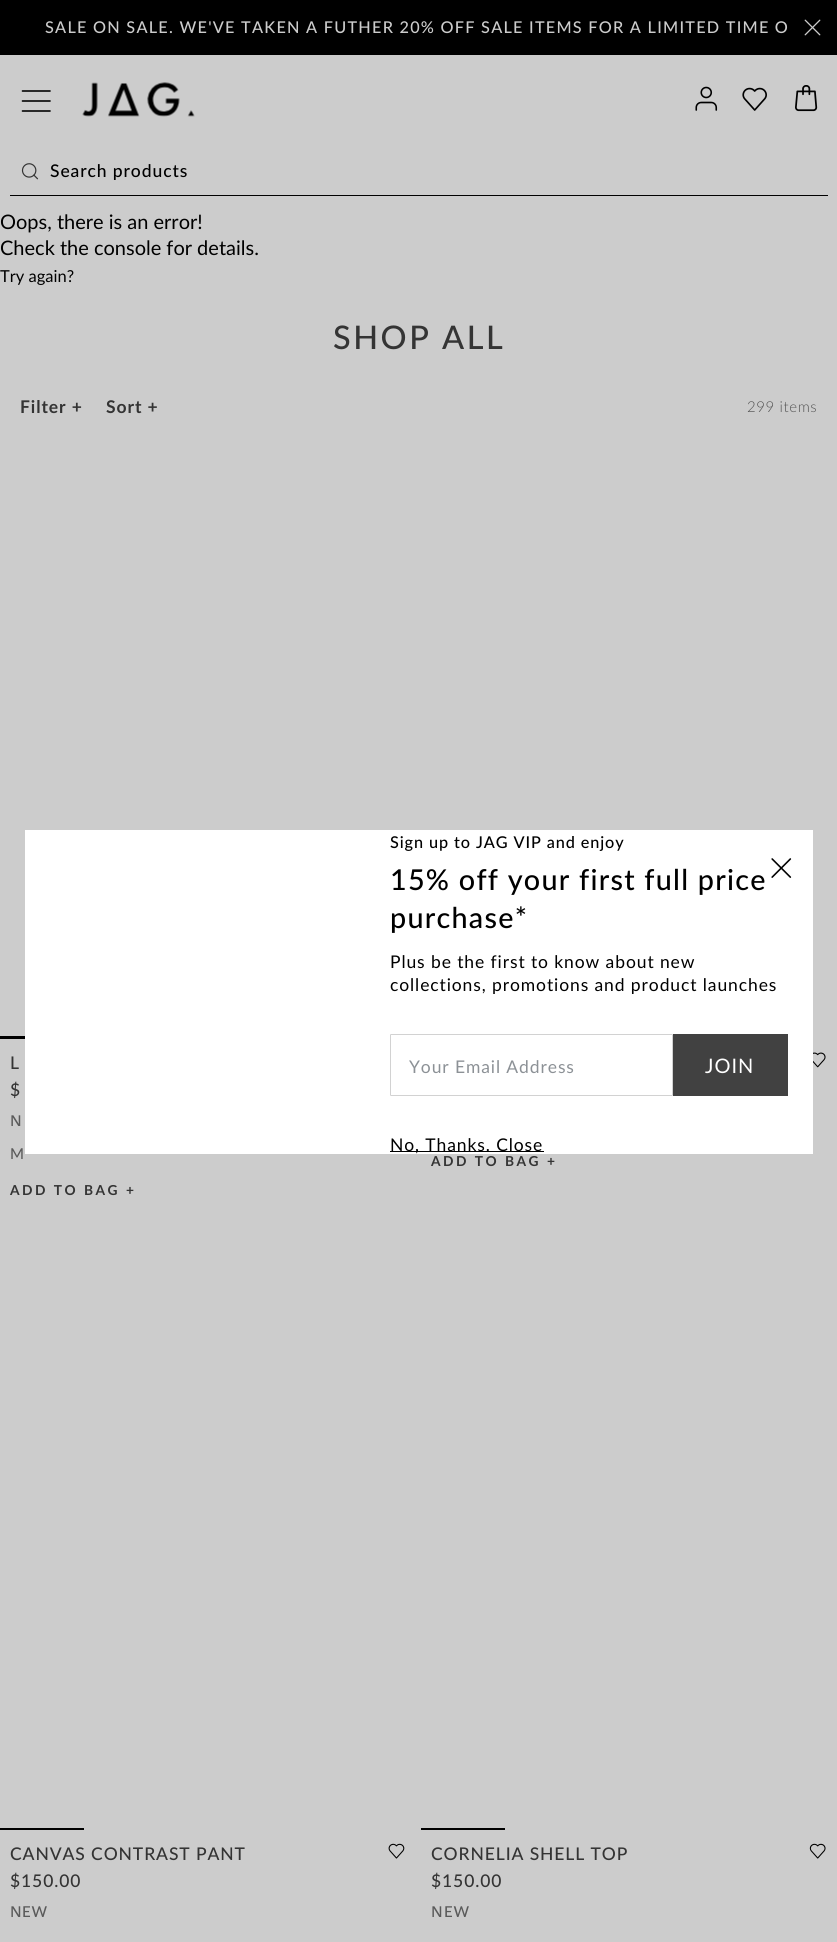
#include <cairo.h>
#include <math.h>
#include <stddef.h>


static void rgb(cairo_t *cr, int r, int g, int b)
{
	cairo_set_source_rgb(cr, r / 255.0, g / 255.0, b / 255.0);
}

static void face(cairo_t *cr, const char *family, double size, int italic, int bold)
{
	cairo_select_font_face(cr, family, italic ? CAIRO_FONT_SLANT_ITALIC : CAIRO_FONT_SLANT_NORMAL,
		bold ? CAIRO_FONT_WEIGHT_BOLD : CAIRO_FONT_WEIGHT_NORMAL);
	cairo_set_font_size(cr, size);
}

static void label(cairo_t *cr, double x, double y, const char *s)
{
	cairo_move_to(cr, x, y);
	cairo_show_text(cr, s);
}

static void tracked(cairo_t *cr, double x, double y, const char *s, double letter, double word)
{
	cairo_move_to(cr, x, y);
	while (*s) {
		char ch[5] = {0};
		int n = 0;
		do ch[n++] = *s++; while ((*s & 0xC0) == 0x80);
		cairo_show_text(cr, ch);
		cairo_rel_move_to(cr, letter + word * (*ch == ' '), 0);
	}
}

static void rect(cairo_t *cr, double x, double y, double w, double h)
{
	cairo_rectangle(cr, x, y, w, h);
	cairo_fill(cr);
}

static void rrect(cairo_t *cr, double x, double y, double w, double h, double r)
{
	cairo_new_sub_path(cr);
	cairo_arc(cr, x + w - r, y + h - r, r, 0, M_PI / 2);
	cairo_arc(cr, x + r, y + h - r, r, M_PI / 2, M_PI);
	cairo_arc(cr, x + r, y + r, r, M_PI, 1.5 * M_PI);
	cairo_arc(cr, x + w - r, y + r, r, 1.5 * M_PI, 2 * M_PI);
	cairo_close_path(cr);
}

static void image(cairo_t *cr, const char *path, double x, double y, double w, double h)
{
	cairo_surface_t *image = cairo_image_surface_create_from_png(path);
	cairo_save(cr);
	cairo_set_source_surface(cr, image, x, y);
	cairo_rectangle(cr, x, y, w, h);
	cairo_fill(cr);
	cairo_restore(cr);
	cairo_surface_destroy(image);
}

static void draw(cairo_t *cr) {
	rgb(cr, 204, 204, 204);
	cairo_paint(cr);
	rgb(cr, 0, 0, 0);
	rect(cr, 0, 0, 837, 55);
	face(cr, "Lato Medium", 16.25, 0, 0);
	rgb(cr, 204, 204, 204);
	tracked(cr, 45, 33, "SALE ON SALE. WE'VE TAKEN A FUTHER 20% OFF SALE ITEMS FOR A LIMITED TIME O", 1.25, 0);
	image(cr, "image0.png", 804, 19, 17, 17);
	cairo_new_path(cr);
	cairo_move_to(cr, 22.5, 101);
	cairo_line_to(cr, 50, 101);
	cairo_move_to(cr, 22.5, 91);
	cairo_line_to(cr, 50, 91);
	cairo_move_to(cr, 22.5, 111);
	cairo_line_to(cr, 50, 111);
	rgb(cr, 0, 0, 0);
	cairo_set_line_width(cr, 1.6);
	cairo_set_line_cap(cr, CAIRO_LINE_CAP_ROUND);
	cairo_set_line_join(cr, CAIRO_LINE_JOIN_ROUND);
	cairo_stroke(cr);
	image(cr, "image1.png", 82, 82, 113, 35);
	image(cr, "image2.png", 695, 86, 23, 25);
	image(cr, "image3.png", 742, 87, 25, 24);
	image(cr, "image4.png", 795, 85, 23, 27);
	image(cr, "image5.png", 21, 163, 18, 17);
	rect(cr, 10, 195, 818, 1);
	face(cr, "Lato Medium", 17.5, 0, 0);
	tracked(cr, 50, 177, "Search products", 0.9, 0);
	face(cr, "Lato", 20, 0, 0);
	label(cr, 0, 229, "Oops, there is an error!");
	label(cr, 0, 255, "Check the console for details.");
	face(cr, "Lato", 16.5, 0, 0);
	label(cr, 0, 282, "Try again?");
	face(cr, "Lato Medium", 32.5, 0, 0);
	rgb(cr, 52, 52, 52);
	tracked(cr, 333, 349, "SHOP ALL", 2.5, 0);
	face(cr, "Lato", 17.5, 0, 1);
	tracked(cr, 20, 413, "Filter +", 0.9, 0);
	tracked(cr, 106, 413, "Sort +", 0.9, 0);
	face(cr, "Lato Light", 15, 0, 0);
	rgb(cr, 82, 82, 82);
	tracked(cr, 747, 412, "299 items", 0.6, 0);
	rgb(cr, 0, 0, 0);
	rect(cr, 0, 1036, 25, 3);
	face(cr, "Lato Medium", 17.5, 0, 0);
	rgb(cr, 52, 52, 52);
	tracked(cr, 10, 1069, "L", 0.9, 0);
	tracked(cr, 10, 1096, "$", 0.9, 0);
	face(cr, "Noto Sans Medium", 15, 0, 0);
	rgb(cr, 90, 90, 90);
	tracked(cr, 10, 1126, "N", 0.9, 0);
	face(cr, "Lato Medium", 15, 0, 0);
	tracked(cr, 10, 1159, "M", 0.9, 0);
	face(cr, "Lato", 13.75, 0, 1);
	rgb(cr, 52, 52, 52);
	tracked(cr, 10, 1195, "ADD TO BAG +", 2.5, 0);
	image(cr, "image6.png", 813, 1052, 13, 16);
	tracked(cr, 431, 1166, "ADD TO BAG +", 2.5, 0);
	rgb(cr, 0, 0, 0);
	rect(cr, 0, 1828, 84, 2);
	face(cr, "Lato Medium", 17.5, 0, 0);
	rgb(cr, 52, 52, 52);
	tracked(cr, 10, 1860, "CANVAS CONTRAST PANT", 0.9, 0);
	image(cr, "image7.png", 388, 1843, 17, 16);
	tracked(cr, 10, 1887, "$150.00", 0.9, 0);
	face(cr, "Noto Sans Medium", 15, 0, 0);
	rgb(cr, 90, 90, 90);
	tracked(cr, 10, 1917, "N", 0.9, 0);
	face(cr, "Lato Medium", 15, 0, 0);
	tracked(cr, 22, 1917, "EW", 0.9, 0);
	rgb(cr, 0, 0, 0);
	rect(cr, 421, 1828, 84, 2);
	face(cr, "Lato Medium", 17.5, 0, 0);
	rgb(cr, 52, 52, 52);
	tracked(cr, 431, 1860, "CORNELIA SHELL TOP", 0.9, 0);
	image(cr, "image8.png", 809, 1843, 17, 16);
	tracked(cr, 431, 1887, "$150.00", 0.9, 0);
	face(cr, "Noto Sans Medium", 15, 0, 0);
	rgb(cr, 90, 90, 90);
	tracked(cr, 431, 1917, "N", 0.9, 0);
	face(cr, "Lato Medium", 15, 0, 0);
	tracked(cr, 444, 1917, "EW", 0.9, 0);
	rgb(cr, 255, 255, 255);
	rect(cr, 25, 830, 788, 324);
	face(cr, "Lato Medium", 16.25, 0, 0);
	rgb(cr, 0, 0, 0);
	tracked(cr, 390, 848, "Sign up to JAG VIP and enjoy", 0.9, 0);
	face(cr, "Lato Medium", 28.75, 0, 0);
	tracked(cr, 390, 890, "15% off your first full price", 1.25, 0);
	tracked(cr, 390, 928, "purchase*", 1.25, 0);
	face(cr, "Lato", 17.5, 0, 0);
	tracked(cr, 390, 968, "Plus be the first to know about new", 0.9, 0);
	tracked(cr, 390, 991, "collections, promotions and product launches", 0.9, 0);
	rrect(cr, 390.5, 1034.5, 282, 61, 0.5);
	rgb(cr, 210, 210, 210);
	cairo_set_line_width(cr, 1);
	cairo_set_line_cap(cr, CAIRO_LINE_CAP_BUTT);
	cairo_set_line_join(cr, CAIRO_LINE_JOIN_MITER);
	cairo_stroke(cr);
	rgb(cr, 140, 145, 150);
	tracked(cr, 409, 1073, "Your Email Address", 0.9, 0);
	rgb(cr, 65, 65, 65);
	rect(cr, 673, 1034, 115, 62);
	face(cr, "Lato", 20, 0, 0);
	rgb(cr, 255, 255, 255);
	tracked(cr, 705, 1073, "JOIN", 1, 0);
	rgb(cr, 0, 0, 0);
	rect(cr, 390, 1151, 154, 1);
	face(cr, "Lato", 17.5, 0, 0);
	tracked(cr, 390, 1151, "No, Thanks. Close", 0.9, 0);
	image(cr, "image9.png", 771, 858, 21, 20);
}

int main(void) {
	cairo_surface_t *surface = cairo_image_surface_create(CAIRO_FORMAT_RGB24, 837, 1942);
	cairo_t *cr = cairo_create(surface);
	cairo_font_options_t *options = cairo_font_options_create();
	cairo_font_options_set_hint_metrics(options, CAIRO_HINT_METRICS_OFF);
	cairo_font_options_set_hint_style(options, CAIRO_HINT_STYLE_NONE);
	cairo_set_font_options(cr, options);
	cairo_set_miter_limit(cr, 4);
	draw(cr);
	cairo_surface_write_to_png(surface, "render.png");
	cairo_font_options_destroy(options);
	cairo_destroy(cr);
	cairo_surface_destroy(surface);
	return 0;
}
